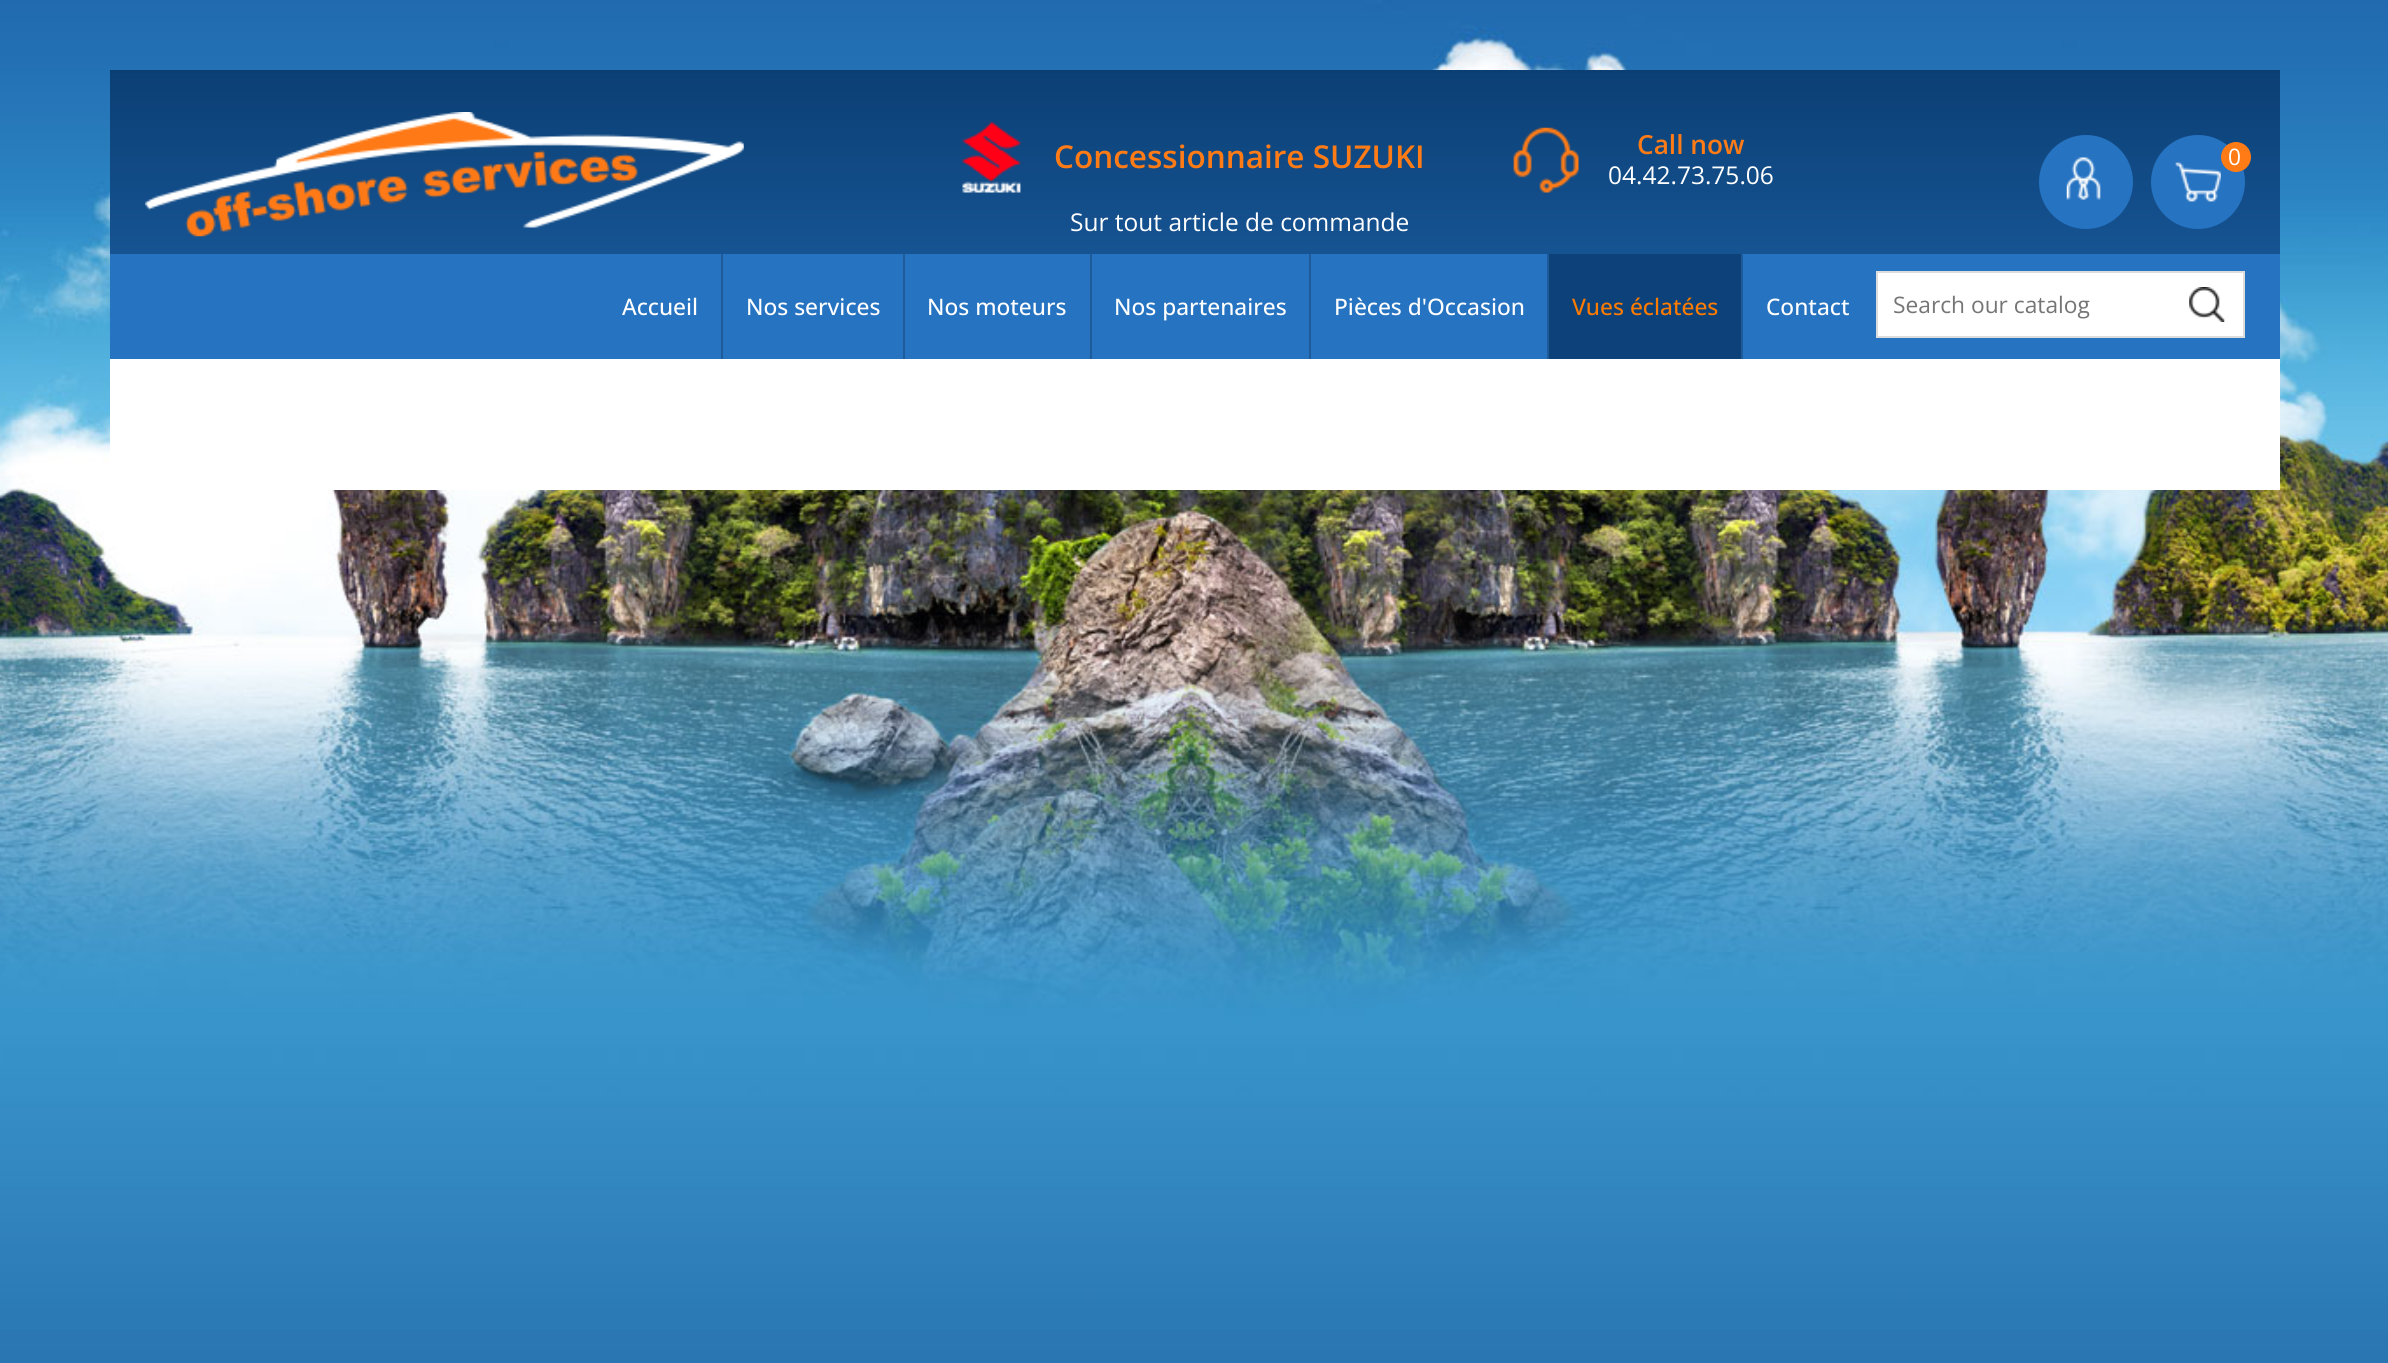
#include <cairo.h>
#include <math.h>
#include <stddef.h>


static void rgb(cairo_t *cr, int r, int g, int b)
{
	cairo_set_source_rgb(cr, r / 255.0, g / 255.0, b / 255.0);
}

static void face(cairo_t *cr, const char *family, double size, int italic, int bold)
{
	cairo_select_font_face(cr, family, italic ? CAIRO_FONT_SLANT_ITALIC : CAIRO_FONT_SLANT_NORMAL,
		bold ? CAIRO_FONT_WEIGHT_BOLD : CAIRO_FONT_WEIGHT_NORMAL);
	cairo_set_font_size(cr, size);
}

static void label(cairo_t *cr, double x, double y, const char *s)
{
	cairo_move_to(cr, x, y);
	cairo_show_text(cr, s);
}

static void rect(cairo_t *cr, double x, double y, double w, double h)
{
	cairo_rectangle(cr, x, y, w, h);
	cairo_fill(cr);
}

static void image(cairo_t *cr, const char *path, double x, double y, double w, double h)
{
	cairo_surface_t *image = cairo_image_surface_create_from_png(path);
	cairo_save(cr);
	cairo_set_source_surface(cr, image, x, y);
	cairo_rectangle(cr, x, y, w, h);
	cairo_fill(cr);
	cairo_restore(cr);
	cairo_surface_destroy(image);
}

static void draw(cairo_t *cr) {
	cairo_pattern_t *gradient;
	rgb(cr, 255, 255, 255);
	cairo_paint(cr);
	image(cr, "image0.png", 0, 0, 2388, 1363);
	gradient = cairo_pattern_create_linear(1195, 70, 1195, 359);
	cairo_pattern_add_color_stop_rgba(gradient, 0, 0.043, 0.247, 0.455, 1);
	cairo_pattern_add_color_stop_rgba(gradient, 1, 0.11, 0.373, 0.643, 1);
	cairo_set_source(cr, gradient);
	cairo_pattern_destroy(gradient);
	rect(cr, 110, 70, 2170, 184);
	image(cr, "image1.png", 145, 112, 599, 125);
	image(cr, "image2.png", 962, 122, 59, 71);
	face(cr, "Open Sans SemiBold", 31.5, 0, 0);
	rgb(cr, 255, 123, 22);
	label(cr, 1054, 168, "Concessionnaire SUZUKI");
	face(cr, "Open Sans", 24.5, 0, 0);
	rgb(cr, 255, 255, 255);
	label(cr, 1070, 231, "Sur tout article de commande");
	image(cr, "image3.png", 1513, 127, 66, 66);
	face(cr, "Open Sans SemiBold", 26.25, 0, 0);
	rgb(cr, 255, 123, 22);
	label(cr, 1637, 154, "Call now");
	face(cr, "Open Sans", 24.5, 0, 0);
	rgb(cr, 255, 255, 255);
	label(cr, 1608, 184, "04.42.73.75.06");
	rgb(cr, 38, 115, 194);
	cairo_new_path(cr);
	cairo_arc(cr, 2086, 182, 47, 0, 2 * M_PI);
	cairo_fill(cr);
	image(cr, "image4.png", 2066, 157, 35, 43);
	cairo_arc(cr, 2198, 182, 47, 0, 2 * M_PI);
	cairo_fill(cr);
	image(cr, "image5.png", 2175, 162, 46, 40);
	rgb(cr, 255, 123, 21);
	cairo_arc(cr, 2236, 157, 15, 0, 2 * M_PI);
	cairo_fill(cr);
	face(cr, "Open Sans", 22.75, 0, 0);
	rgb(cr, 255, 255, 255);
	label(cr, 2228, 165, "0");
	rgb(cr, 38, 115, 194);
	rect(cr, 110, 254, 2170, 105);
	face(cr, "Open Sans Medium", 22.75, 0, 0);
	rgb(cr, 255, 255, 255);
	label(cr, 622, 315, "Accueil");
	rgb(cr, 30, 91, 154);
	rect(cr, 721, 254, 2, 105);
	rgb(cr, 255, 255, 255);
	label(cr, 746, 315, "Nos services");
	rgb(cr, 30, 91, 154);
	rect(cr, 903, 254, 2, 105);
	rgb(cr, 255, 255, 255);
	label(cr, 927, 315, "Nos moteurs");
	rgb(cr, 30, 91, 154);
	rect(cr, 1090, 254, 2, 105);
	rgb(cr, 255, 255, 255);
	label(cr, 1114, 315, "Nos partenaires");
	rgb(cr, 30, 91, 154);
	rect(cr, 1309, 254, 2, 105);
	rgb(cr, 255, 255, 255);
	label(cr, 1334, 315, "Pièces d'Occasion");
	rgb(cr, 12, 66, 121);
	rect(cr, 1549, 254, 192, 105);
	rgb(cr, 30, 91, 154);
	rect(cr, 1547, 254, 2, 105);
	rgb(cr, 255, 123, 0);
	label(cr, 1572, 315, "Vues éclatées");
	rgb(cr, 30, 91, 154);
	rect(cr, 1741, 254, 2, 105);
	rgb(cr, 255, 255, 255);
	label(cr, 1766, 315, "Contact");
	cairo_rectangle(cr, 1877, 272, 367, 65);
	cairo_fill_preserve(cr);
	rgb(cr, 221, 221, 221);
	cairo_stroke(cr);
	face(cr, "Open Sans", 22.75, 0, 0);
	rgb(cr, 117, 117, 117);
	label(cr, 1893, 313, "Search our catalog");
	image(cr, "image6.png", 2189, 287, 36, 35);
	rgb(cr, 255, 255, 255);
	rect(cr, 110, 359, 2170, 42);
	rect(cr, 110, 401, 2170, 89);
}

int main(void) {
	cairo_surface_t *surface = cairo_image_surface_create(CAIRO_FORMAT_RGB24, 2388, 1363);
	cairo_t *cr = cairo_create(surface);
	cairo_font_options_t *options = cairo_font_options_create();
	cairo_font_options_set_hint_metrics(options, CAIRO_HINT_METRICS_OFF);
	cairo_font_options_set_hint_style(options, CAIRO_HINT_STYLE_NONE);
	cairo_set_font_options(cr, options);
	cairo_set_miter_limit(cr, 4);
	draw(cr);
	cairo_surface_write_to_png(surface, "render.png");
	cairo_font_options_destroy(options);
	cairo_destroy(cr);
	cairo_surface_destroy(surface);
	return 0;
}
